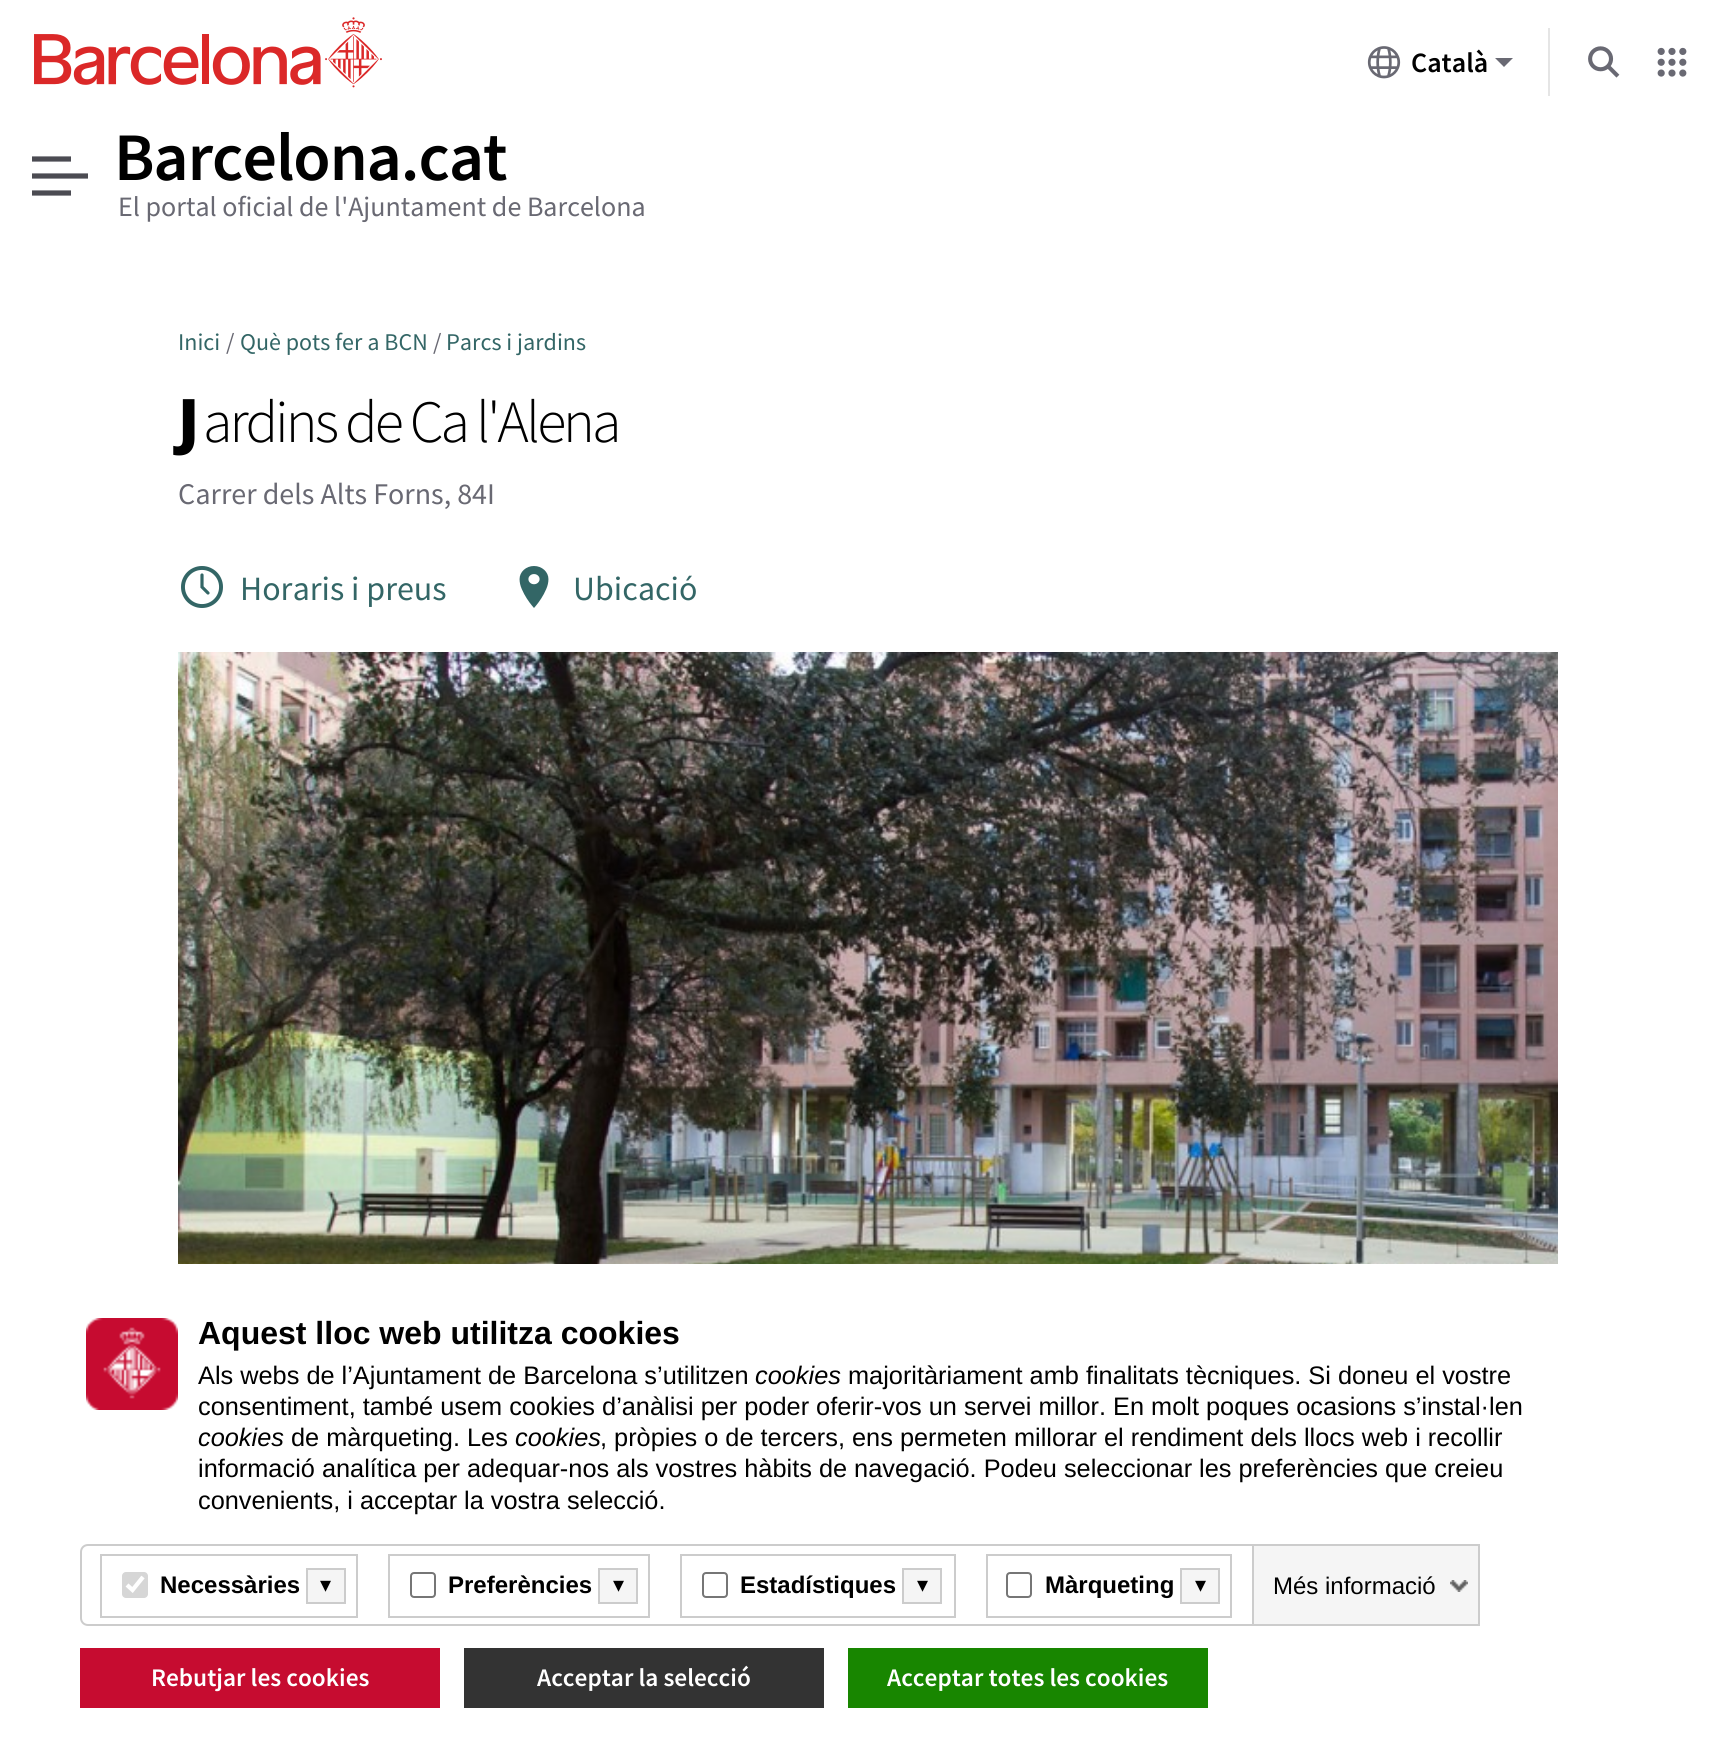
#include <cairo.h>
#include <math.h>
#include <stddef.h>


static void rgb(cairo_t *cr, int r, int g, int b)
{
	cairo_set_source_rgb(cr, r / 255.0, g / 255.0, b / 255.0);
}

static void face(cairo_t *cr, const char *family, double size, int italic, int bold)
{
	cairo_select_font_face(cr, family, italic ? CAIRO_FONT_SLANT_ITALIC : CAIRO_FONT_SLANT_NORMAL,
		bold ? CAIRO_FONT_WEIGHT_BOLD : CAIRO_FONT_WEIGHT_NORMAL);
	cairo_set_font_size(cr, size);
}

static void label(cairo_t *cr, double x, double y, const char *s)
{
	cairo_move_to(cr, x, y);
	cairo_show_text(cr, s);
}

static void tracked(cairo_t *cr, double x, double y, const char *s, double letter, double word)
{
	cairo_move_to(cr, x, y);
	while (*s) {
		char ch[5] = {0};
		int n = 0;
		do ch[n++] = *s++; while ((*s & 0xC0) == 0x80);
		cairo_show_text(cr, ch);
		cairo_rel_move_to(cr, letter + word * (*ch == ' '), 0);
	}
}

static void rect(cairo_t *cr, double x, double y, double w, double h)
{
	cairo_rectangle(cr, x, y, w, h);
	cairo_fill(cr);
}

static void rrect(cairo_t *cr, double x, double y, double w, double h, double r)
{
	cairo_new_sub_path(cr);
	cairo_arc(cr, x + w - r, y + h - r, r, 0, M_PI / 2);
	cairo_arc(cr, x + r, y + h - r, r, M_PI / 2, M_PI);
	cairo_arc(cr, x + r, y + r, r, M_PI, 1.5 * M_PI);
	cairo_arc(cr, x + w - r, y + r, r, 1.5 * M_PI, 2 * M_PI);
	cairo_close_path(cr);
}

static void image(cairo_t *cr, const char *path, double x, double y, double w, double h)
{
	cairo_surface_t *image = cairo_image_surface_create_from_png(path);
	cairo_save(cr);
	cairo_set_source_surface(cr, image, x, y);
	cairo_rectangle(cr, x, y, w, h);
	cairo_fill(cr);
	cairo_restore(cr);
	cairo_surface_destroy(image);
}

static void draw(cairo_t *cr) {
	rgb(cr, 255, 255, 255);
	cairo_paint(cr);
	image(cr, "image0.png", 34, 17, 348, 71);
	rgb(cr, 229, 229, 229);
	rect(cr, 1548, 28, 2, 68);
	image(cr, "image1.png", 1367, 46, 34, 33);
	face(cr, "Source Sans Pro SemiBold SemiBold", 28, 0, 0);
	rgb(cr, 0, 0, 0);
	label(cr, 1411, 72, "Català");
	rgb(cr, 105, 105, 115);
	cairo_new_path(cr);
	cairo_move_to(cr, 1495, 58);
	cairo_line_to(cr, 1504, 67);
	cairo_line_to(cr, 1513, 58);
	cairo_close_path(cr);
	cairo_fill(cr);
	image(cr, "image2.png", 1588, 46, 32, 32);
	image(cr, "image3.png", 1657, 47, 30, 30);
	cairo_new_path(cr);
	cairo_move_to(cr, 32, 176);
	cairo_line_to(cr, 88, 176);
	cairo_move_to(cr, 32, 159);
	cairo_line_to(cr, 71, 159);
	cairo_move_to(cr, 32, 193);
	cairo_line_to(cr, 71, 193);
	rgb(cr, 75, 75, 82);
	cairo_set_line_width(cr, 5.2);
	cairo_stroke(cr);
	face(cr, "Source Sans 3 SemiBold", 68, 0, 0);
	rgb(cr, 0, 0, 0);
	tracked(cr, 114, 180, "Barcelona.cat", -1, 0);
	face(cr, "Source Sans 3", 28, 0, 0);
	rgb(cr, 105, 105, 115);
	label(cr, 118, 216, "El portal oficial de l'Ajuntament de Barcelona");
	face(cr, "Source Sans Pro", 24, 0, 0);
	rgb(cr, 51, 102, 102);
	label(cr, 178, 350, "Inici");
	rgb(cr, 105, 105, 115);
	label(cr, 226, 350, "/");
	rgb(cr, 51, 102, 102);
	label(cr, 240, 350, "Què pots fer a BCN");
	rgb(cr, 105, 105, 115);
	label(cr, 433, 350, "/");
	rgb(cr, 51, 102, 102);
	label(cr, 446, 350, "Parcs i jardins");
	face(cr, "Noto Sans Black", 60, 0, 0);
	rgb(cr, 0, 0, 0);
	tracked(cr, 178, 442, "J", -3, 0);
	face(cr, "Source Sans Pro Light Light", 60, 0, 0);
	tracked(cr, 203, 442, "ardins de Ca l'Alena", -3, 0);
	face(cr, "Source Sans Pro", 30, 0, 0);
	rgb(cr, 105, 105, 115);
	label(cr, 178, 504, "Carrer dels Alts Forns, 84I");
	image(cr, "image4.png", 181, 566, 42, 42);
	face(cr, "Source Sans Pro", 34, 0, 0);
	rgb(cr, 51, 102, 102);
	label(cr, 240, 600, "Horaris i preus");
	image(cr, "image5.png", 519, 566, 30, 42);
	label(cr, 573, 600, "Ubicació");
	image(cr, "image6.png", 178, 652, 1380, 612);
	image(cr, "image7.png", 86, 1318, 92, 92);
	face(cr, "Liberation Sans", 32, 0, 1);
	rgb(cr, 0, 0, 0);
	label(cr, 198, 1344, "Aquest lloc web utilitza cookies");
	face(cr, "Liberation Sans", 25.33, 0, 0);
	label(cr, 198, 1384, "Als webs de l’Ajuntament de Barcelona s’utilitzen");
	face(cr, "Liberation Sans", 25.33, 1, 0);
	label(cr, 755, 1384, "cookies");
	face(cr, "Liberation Sans", 25.33, 0, 0);
	label(cr, 848, 1384, "majoritàriament amb finalitats tècniques. Si doneu el vostre");
	label(cr, 198, 1415, "consentiment, també usem cookies d’anàlisi per poder oferir-vos un servei millor. En molt poques ocasions s’instal·len");
	face(cr, "Liberation Sans", 25.33, 1, 0);
	label(cr, 198, 1446, "cookies");
	face(cr, "Liberation Sans", 25.33, 0, 0);
	label(cr, 291, 1446, "de màrqueting. Les");
	face(cr, "Liberation Sans", 25.33, 1, 0);
	label(cr, 515, 1446, "cookies");
	face(cr, "Liberation Sans", 25.33, 0, 0);
	label(cr, 600, 1446, ", pròpies o de tercers, ens permeten millorar el rendiment dels llocs web i recollir");
	label(cr, 198, 1477, "informació analítica per adequar-nos als vostres hàbits de navegació. Podeu seleccionar les preferències que creieu");
	label(cr, 198, 1509, "convenients, i acceptar la vostra selecció.");
	cairo_new_path(cr);
	cairo_move_to(cr, 88, 1545);
	cairo_line_to(cr, 1253, 1545);
	cairo_line_to(cr, 1253, 1625);
	cairo_line_to(cr, 88, 1625);
	cairo_curve_to(cr, 84, 1625, 81, 1622, 81, 1618);
	cairo_line_to(cr, 81, 1552);
	cairo_curve_to(cr, 81, 1548, 84, 1545, 88, 1545);
	cairo_close_path(cr);
	rgb(cr, 204, 204, 204);
	cairo_set_line_width(cr, 2);
	cairo_stroke(cr);
	cairo_rectangle(cr, 101, 1555, 256, 62);
	cairo_stroke(cr);
	rgb(cr, 214, 214, 214);
	rrect(cr, 122, 1572, 26, 26, 4);
	cairo_fill(cr);
	cairo_new_path(cr);
	cairo_move_to(cr, 127, 1585);
	cairo_line_to(cr, 132.5, 1590);
	cairo_line_to(cr, 143, 1577);
	rgb(cr, 255, 255, 255);
	cairo_set_line_width(cr, 4.2);
	cairo_stroke(cr);
	face(cr, "Liberation Sans", 24, 0, 1);
	rgb(cr, 0, 0, 0);
	label(cr, 160, 1593, "Necessàries");
	rgb(cr, 245, 245, 245);
	cairo_rectangle(cr, 307, 1569, 38, 34);
	cairo_fill_preserve(cr);
	rgb(cr, 204, 204, 204);
	cairo_set_line_width(cr, 2);
	cairo_stroke(cr);
	face(cr, "DejaVu Sans", 22, 0, 0);
	rgb(cr, 0, 0, 0);
	label(cr, 320, 1592, "▾");
	cairo_rectangle(cr, 389, 1555, 260, 62);
	rgb(cr, 204, 204, 204);
	cairo_stroke(cr);
	rrect(cr, 411, 1573, 24, 24, 3);
	rgb(cr, 118, 118, 118);
	cairo_stroke(cr);
	face(cr, "Liberation Sans", 24, 0, 1);
	rgb(cr, 0, 0, 0);
	label(cr, 448, 1593, "Preferències");
	rgb(cr, 245, 245, 245);
	cairo_rectangle(cr, 599, 1569, 38, 34);
	cairo_fill_preserve(cr);
	rgb(cr, 204, 204, 204);
	cairo_stroke(cr);
	face(cr, "DejaVu Sans", 22, 0, 0);
	rgb(cr, 0, 0, 0);
	label(cr, 613, 1592, "▾");
	cairo_rectangle(cr, 681, 1555, 274, 62);
	rgb(cr, 204, 204, 204);
	cairo_stroke(cr);
	rrect(cr, 703, 1573, 24, 24, 3);
	rgb(cr, 118, 118, 118);
	cairo_stroke(cr);
	face(cr, "Liberation Sans", 24, 0, 1);
	rgb(cr, 0, 0, 0);
	label(cr, 740, 1593, "Estadístiques");
	rgb(cr, 245, 245, 245);
	cairo_rectangle(cr, 903, 1569, 38, 34);
	cairo_fill_preserve(cr);
	rgb(cr, 204, 204, 204);
	cairo_stroke(cr);
	face(cr, "DejaVu Sans", 22, 0, 0);
	rgb(cr, 0, 0, 0);
	label(cr, 917, 1592, "▾");
	cairo_rectangle(cr, 987, 1555, 244, 62);
	rgb(cr, 204, 204, 204);
	cairo_stroke(cr);
	rrect(cr, 1007, 1573, 24, 24, 3);
	rgb(cr, 118, 118, 118);
	cairo_stroke(cr);
	face(cr, "Liberation Sans", 24, 0, 1);
	rgb(cr, 0, 0, 0);
	label(cr, 1045, 1593, "Màrqueting");
	rgb(cr, 245, 245, 245);
	cairo_rectangle(cr, 1181, 1569, 38, 34);
	cairo_fill_preserve(cr);
	rgb(cr, 204, 204, 204);
	cairo_stroke(cr);
	face(cr, "DejaVu Sans", 22, 0, 0);
	rgb(cr, 0, 0, 0);
	label(cr, 1195, 1592, "▾");
	rgb(cr, 245, 245, 245);
	rect(cr, 1254, 1546, 224, 78);
	rgb(cr, 204, 204, 204);
	rect(cr, 1254, 1544, 226, 2);
	rect(cr, 1478, 1544, 2, 82);
	rect(cr, 1254, 1624, 226, 2);
	image(cr, "image8.png", 1450, 1580, 18, 12);
	face(cr, "Liberation Sans", 24, 0, 0);
	rgb(cr, 0, 0, 0);
	label(cr, 1273, 1594, "Més informació");
	rgb(cr, 198, 12, 48);
	rect(cr, 80, 1648, 360, 60);
	face(cr, "Source Sans Pro SemiBold SemiBold", 25.33, 0, 0);
	rgb(cr, 255, 255, 255);
	label(cr, 151, 1686, "Rebutjar les cookies");
	rgb(cr, 51, 51, 51);
	rect(cr, 464, 1648, 360, 60);
	rgb(cr, 255, 255, 255);
	label(cr, 537, 1686, "Acceptar la selecció");
	rgb(cr, 24, 134, 0);
	rect(cr, 848, 1648, 360, 60);
	rgb(cr, 255, 255, 255);
	label(cr, 887, 1686, "Acceptar totes les cookies");
}

int main(void) {
	cairo_surface_t *surface = cairo_image_surface_create(CAIRO_FORMAT_RGB24, 1735, 1758);
	cairo_t *cr = cairo_create(surface);
	cairo_font_options_t *options = cairo_font_options_create();
	cairo_font_options_set_hint_metrics(options, CAIRO_HINT_METRICS_OFF);
	cairo_font_options_set_hint_style(options, CAIRO_HINT_STYLE_NONE);
	cairo_set_font_options(cr, options);
	cairo_set_miter_limit(cr, 4);
	draw(cr);
	cairo_surface_write_to_png(surface, "render.png");
	cairo_font_options_destroy(options);
	cairo_destroy(cr);
	cairo_surface_destroy(surface);
	return 0;
}
